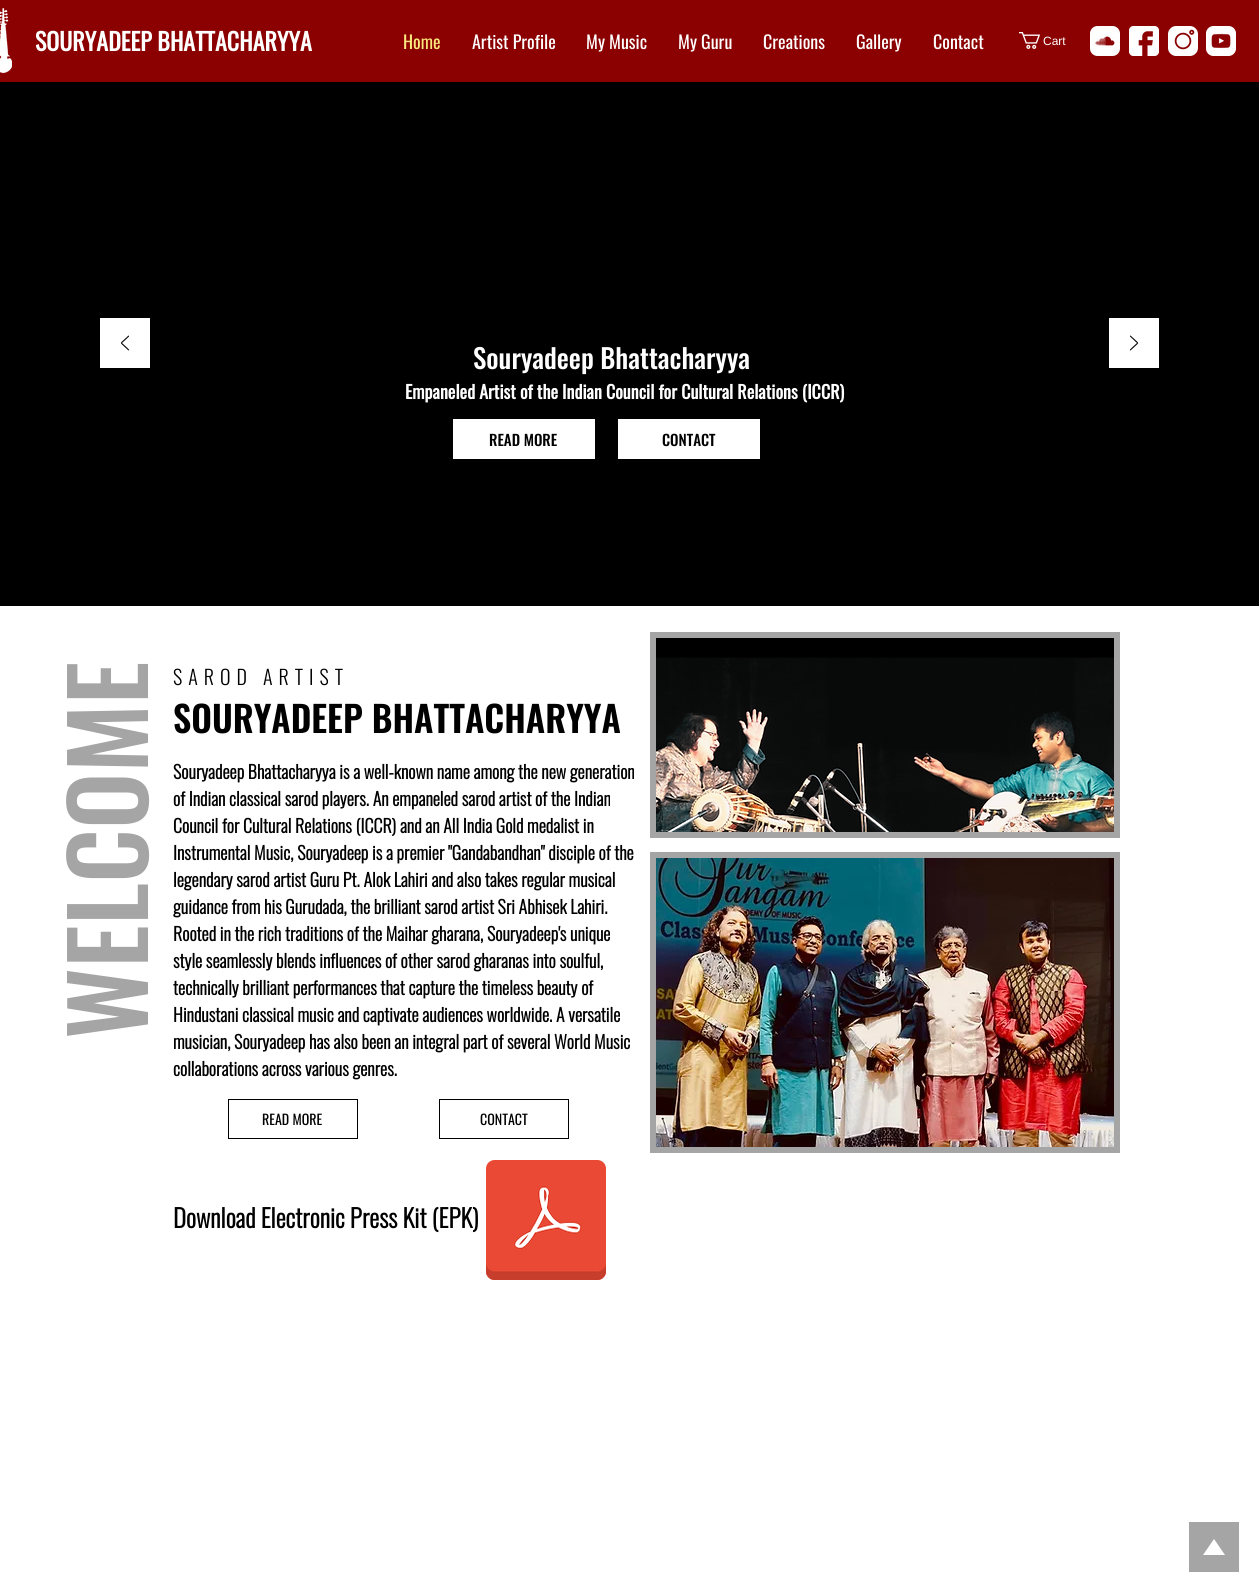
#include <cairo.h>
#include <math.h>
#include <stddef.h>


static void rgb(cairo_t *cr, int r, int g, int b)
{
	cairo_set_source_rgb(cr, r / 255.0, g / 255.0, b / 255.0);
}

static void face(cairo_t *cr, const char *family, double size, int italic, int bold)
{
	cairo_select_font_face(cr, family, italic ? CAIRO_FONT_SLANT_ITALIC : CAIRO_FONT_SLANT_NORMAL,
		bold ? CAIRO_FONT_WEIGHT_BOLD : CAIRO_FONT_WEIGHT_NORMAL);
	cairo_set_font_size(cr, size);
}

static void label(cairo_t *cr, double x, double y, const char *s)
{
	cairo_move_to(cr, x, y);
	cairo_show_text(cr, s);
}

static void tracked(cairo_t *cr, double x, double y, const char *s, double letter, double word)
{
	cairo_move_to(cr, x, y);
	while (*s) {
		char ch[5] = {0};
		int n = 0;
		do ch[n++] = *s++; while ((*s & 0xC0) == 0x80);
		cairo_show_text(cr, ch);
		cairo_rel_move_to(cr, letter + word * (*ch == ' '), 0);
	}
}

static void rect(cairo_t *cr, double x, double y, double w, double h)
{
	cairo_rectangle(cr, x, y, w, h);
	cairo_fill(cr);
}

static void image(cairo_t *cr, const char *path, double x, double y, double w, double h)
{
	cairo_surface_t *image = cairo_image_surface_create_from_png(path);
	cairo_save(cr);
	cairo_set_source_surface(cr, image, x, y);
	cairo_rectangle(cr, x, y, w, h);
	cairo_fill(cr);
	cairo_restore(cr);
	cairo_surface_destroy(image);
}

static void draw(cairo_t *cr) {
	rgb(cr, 255, 255, 255);
	cairo_paint(cr);
	rgb(cr, 139, 0, 0);
	rect(cr, 0, 0, 1259, 82);
	image(cr, "image0.png", 0, 8, 12, 65);
	face(cr, "Oswald", 24, 0, 1);
	rgb(cr, 255, 255, 255);
	label(cr, 35, 51, "SOURYADEEP BHATTACHARYYA");
	face(cr, "Oswald", 18, 0, 0);
	rgb(cr, 249, 233, 124);
	label(cr, 403, 49, "Home");
	rgb(cr, 255, 255, 255);
	label(cr, 472, 49, "Artist Profile");
	label(cr, 586, 49, "My Music");
	label(cr, 678, 49, "My Guru");
	label(cr, 763, 49, "Creations");
	label(cr, 856, 49, "Gallery");
	label(cr, 933, 49, "Contact");
	image(cr, "image1.png", 1019, 32, 22, 17);
	face(cr, "Liberation Sans", 12, 0, 0);
	label(cr, 1043, 45, "Cart");
	image(cr, "image2.png", 1090, 26, 30, 30);
	image(cr, "image3.png", 1129, 26, 30, 30);
	image(cr, "image4.png", 1168, 26, 30, 30);
	image(cr, "image5.png", 1206, 26, 30, 30);
	rgb(cr, 0, 0, 0);
	rect(cr, 0, 82, 1259, 524);
	rgb(cr, 255, 255, 255);
	rect(cr, 100, 318, 50, 50);
	rgb(cr, 0, 0, 0);
	cairo_new_path(cr);
	cairo_move_to(cr, 128.5, 350.5);
	cairo_curve_to(cr, 130.5, 350.5, 128, 348.5, 122, 343);
	cairo_line_to(cr, 129, 336.5);
	cairo_curve_to(cr, 129, 336, 129, 335.5, 128.5, 335.5);
	cairo_line_to(cr, 122, 341.5);
	cairo_curve_to(cr, 120.5, 343, 120.5, 343, 122, 344.5);
	cairo_close_path(cr);
	cairo_fill(cr);
	face(cr, "Oswald Medium", 27, 0, 0);
	rgb(cr, 255, 255, 255);
	label(cr, 473, 369, "Souryadeep Bhattacharyya");
	face(cr, "Oswald", 18, 0, 1);
	label(cr, 405, 399, "Empaneled Artist of the Indian Council for Cultural Relations (ICCR)");
	rect(cr, 453, 419, 142, 40);
	face(cr, "Oswald Medium", 15, 0, 0);
	rgb(cr, 0, 0, 0);
	label(cr, 489, 446, "READ MORE");
	rgb(cr, 255, 255, 255);
	rect(cr, 618, 419, 142, 40);
	rgb(cr, 0, 0, 0);
	label(cr, 662, 446, "CONTACT");
	rgb(cr, 255, 255, 255);
	rect(cr, 1109, 318, 50, 50);
	rgb(cr, 0, 0, 0);
	cairo_new_path(cr);
	cairo_move_to(cr, 1130.5, 350.5);
	cairo_curve_to(cr, 1128.5, 350.5, 1131, 348.5, 1137, 343);
	cairo_line_to(cr, 1130, 336.5);
	cairo_curve_to(cr, 1130, 336, 1130, 335.5, 1130.5, 335.5);
	cairo_line_to(cr, 1137, 341.5);
	cairo_curve_to(cr, 1138.5, 343, 1138.5, 343, 1137, 344.5);
	cairo_close_path(cr);
	cairo_fill(cr);
	face(cr, "Oswald Medium", 100, 0, 0);
	rgb(cr, 165, 165, 165);
	cairo_save(cr);
	cairo_translate(cr, 148, 1039);
	cairo_rotate(cr, -90 * M_PI / 180);
	label(cr, 0, 0, "WELCOME");
	cairo_restore(cr);
	face(cr, "Oswald Light", 20, 0, 0);
	rgb(cr, 0, 0, 0);
	tracked(cr, 173, 685, "SAROD ARTIST", 6, 0);
	rgb(cr, 165, 165, 165);
	rect(cr, 650, 632, 470, 206);
	image(cr, "image6.png", 656, 638, 458, 194);
	face(cr, "Oswald SemiBold", 36, 0, 0);
	rgb(cr, 0, 0, 0);
	label(cr, 173, 733, "SOURYADEEP BHATTACHARYYA");
	face(cr, "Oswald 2", 18, 0, 1);
	label(cr, 173, 779, "Souryadeep Bhattacharyya is a well-known name among the new generation");
	label(cr, 173, 806, "of Indian classical sarod players. An empaneled sarod artist of the Indian");
	label(cr, 173, 833, "Council for Cultural Relations (ICCR) and an All India Gold medalist in");
	label(cr, 173, 860, "Instrumental Music, Souryadeep is a premier \"Gandabandhan\" disciple of the");
	label(cr, 173, 887, "legendary sarod artist Guru Pt. Alok Lahiri and also takes regular musical");
	label(cr, 173, 914, "guidance from his Gurudada, the brilliant sarod artist Sri Abhisek Lahiri.");
	label(cr, 173, 941, "Rooted in the rich traditions of the Maihar gharana, Souryadeep's unique");
	label(cr, 173, 968, "style seamlessly blends influences of other sarod gharanas into soulful,");
	label(cr, 173, 995, "technically brilliant performances that capture the timeless beauty of");
	label(cr, 173, 1022, "Hindustani classical music and captivate audiences worldwide. A versatile");
	label(cr, 173, 1049, "musician, Souryadeep has also been an integral part of several World Music");
	label(cr, 173, 1076, "collaborations across various genres.");
	rgb(cr, 165, 165, 165);
	rect(cr, 650, 852, 470, 301);
	image(cr, "image7.png", 656, 858, 458, 289);
	cairo_rectangle(cr, 228.5, 1099.5, 129, 39);
	rgb(cr, 0, 0, 0);
	cairo_set_line_width(cr, 1);
	cairo_stroke(cr);
	face(cr, "Oswald", 14, 0, 0);
	label(cr, 262, 1125, "READ MORE");
	cairo_rectangle(cr, 439.5, 1099.5, 129, 39);
	cairo_stroke(cr);
	label(cr, 480, 1125, "CONTACT");
	face(cr, "Oswald 2", 25, 0, 1);
	label(cr, 173, 1228, "Download Electronic Press Kit (EPK)");
	image(cr, "image8.png", 486, 1160, 120, 120);
	rgb(cr, 165, 165, 165);
	cairo_new_path(cr);
	cairo_move_to(cr, 1189, 1522);
	cairo_line_to(cr, 1189, 1572);
	cairo_line_to(cr, 1239, 1572);
	cairo_line_to(cr, 1239, 1522);
	cairo_close_path(cr);
	cairo_move_to(cr, 1203, 1555);
	cairo_line_to(cr, 1214, 1539);
	cairo_line_to(cr, 1225, 1555);
	cairo_close_path(cr);
	cairo_fill(cr);
}

int main(void) {
	cairo_surface_t *surface = cairo_image_surface_create(CAIRO_FORMAT_RGB24, 1259, 1592);
	cairo_t *cr = cairo_create(surface);
	cairo_font_options_t *options = cairo_font_options_create();
	cairo_font_options_set_hint_metrics(options, CAIRO_HINT_METRICS_OFF);
	cairo_font_options_set_hint_style(options, CAIRO_HINT_STYLE_NONE);
	cairo_set_font_options(cr, options);
	cairo_set_miter_limit(cr, 4);
	draw(cr);
	cairo_surface_write_to_png(surface, "render.png");
	cairo_font_options_destroy(options);
	cairo_destroy(cr);
	cairo_surface_destroy(surface);
	return 0;
}
